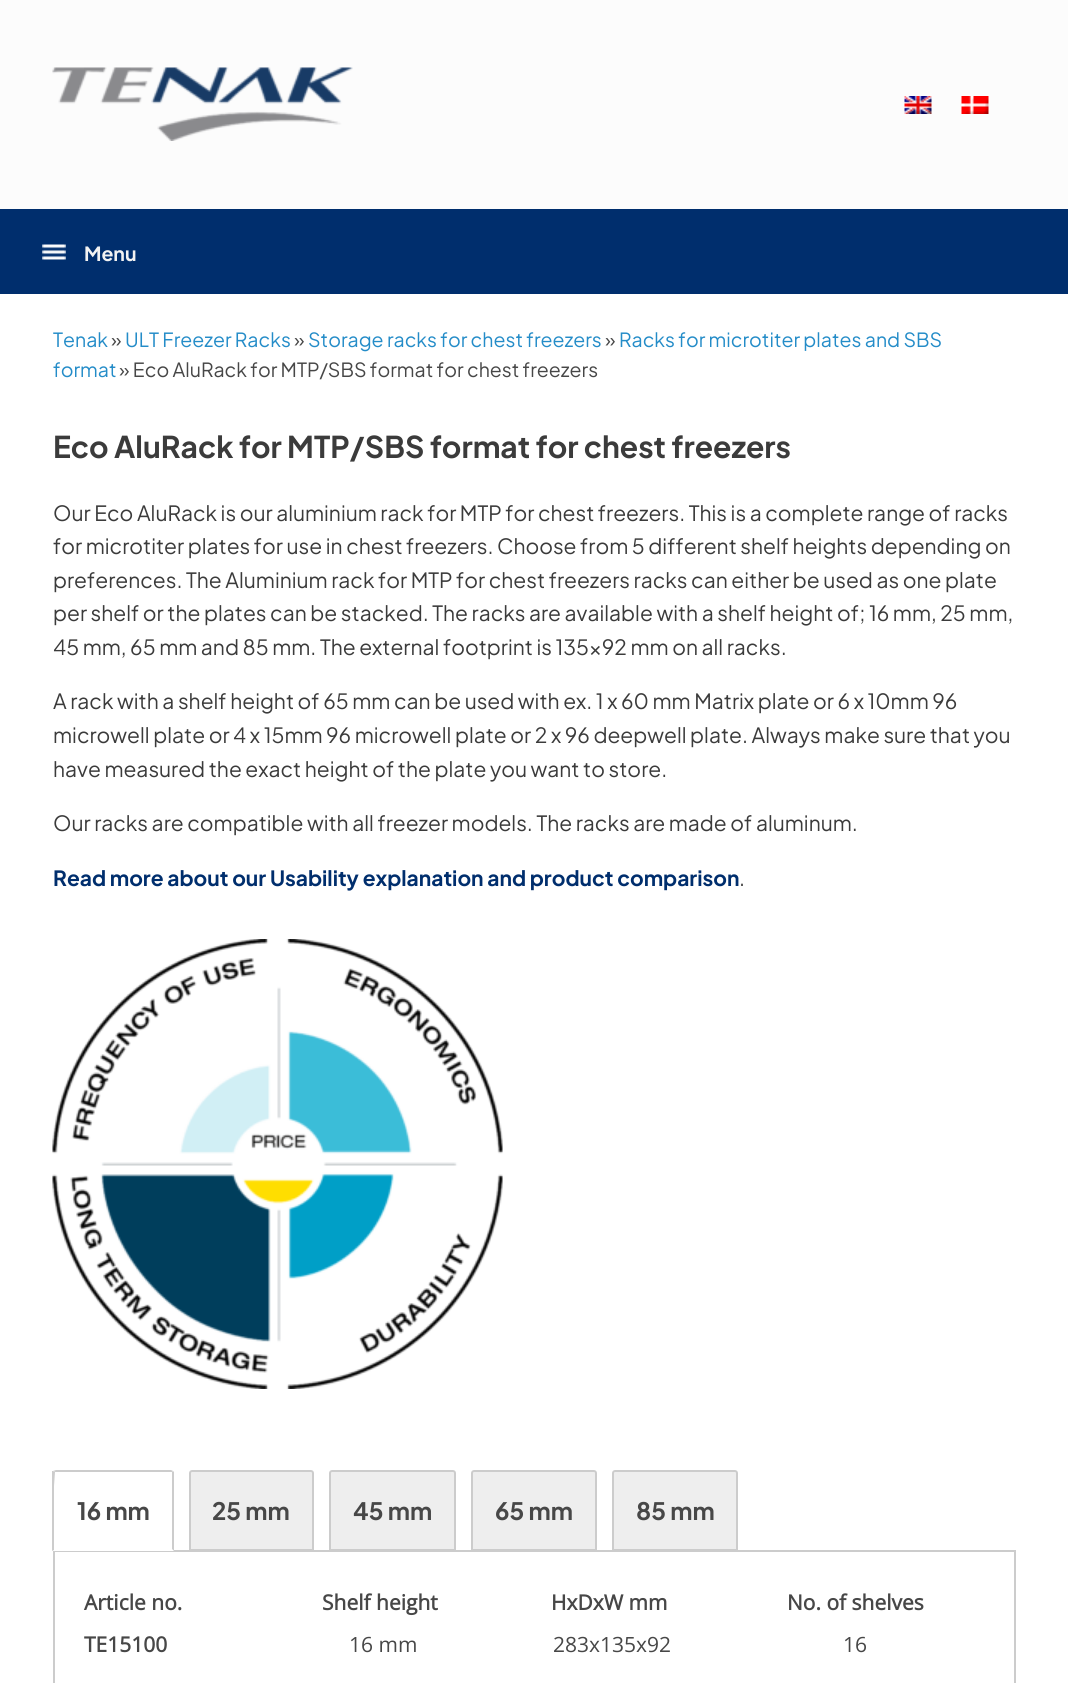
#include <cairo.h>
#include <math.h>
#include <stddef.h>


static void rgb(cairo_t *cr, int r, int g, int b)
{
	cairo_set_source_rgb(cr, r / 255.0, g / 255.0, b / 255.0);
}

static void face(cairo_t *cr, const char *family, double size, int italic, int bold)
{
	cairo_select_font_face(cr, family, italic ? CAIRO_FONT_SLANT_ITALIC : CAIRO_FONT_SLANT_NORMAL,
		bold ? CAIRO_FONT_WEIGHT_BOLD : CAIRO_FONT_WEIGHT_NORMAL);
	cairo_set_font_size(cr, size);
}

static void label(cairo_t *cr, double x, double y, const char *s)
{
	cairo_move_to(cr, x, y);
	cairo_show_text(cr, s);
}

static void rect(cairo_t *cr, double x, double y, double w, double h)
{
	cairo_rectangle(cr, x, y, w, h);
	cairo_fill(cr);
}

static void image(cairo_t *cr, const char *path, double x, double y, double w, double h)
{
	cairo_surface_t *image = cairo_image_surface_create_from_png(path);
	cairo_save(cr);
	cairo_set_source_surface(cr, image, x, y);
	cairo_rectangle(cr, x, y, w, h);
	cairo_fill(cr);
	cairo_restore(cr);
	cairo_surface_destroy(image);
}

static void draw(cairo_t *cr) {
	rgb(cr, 252, 252, 252);
	cairo_paint(cr);
	image(cr, "image0.png", 52, 67, 301, 74);
	image(cr, "image1.png", 904, 96, 28, 18);
	image(cr, "image2.png", 961, 96, 28, 18);
	rgb(cr, 0, 46, 109);
	rect(cr, 0, 209, 1068, 85);
	image(cr, "image3.png", 42, 244, 24, 16);
	face(cr, "Plus Jakarta Sans", 19.5, 0, 1);
	rgb(cr, 242, 242, 242);
	label(cr, 84, 261, "Menu");
	rgb(cr, 255, 255, 255);
	rect(cr, 0, 294, 1068, 1389);
	face(cr, "Plus Jakarta Sans", 19.5, 0, 0);
	rgb(cr, 36, 140, 200);
	label(cr, 53, 347, "Tenak");
	rgb(cr, 71, 71, 71);
	label(cr, 111, 347, "»");
	rgb(cr, 36, 140, 200);
	label(cr, 125, 347, "ULT Freezer Racks");
	rgb(cr, 71, 71, 71);
	label(cr, 294, 347, "»");
	rgb(cr, 36, 140, 200);
	label(cr, 308, 347, "Storage racks for chest freezers");
	rgb(cr, 71, 71, 71);
	label(cr, 605, 347, "»");
	rgb(cr, 36, 140, 200);
	label(cr, 619, 347, "Racks for microtiter plates and SBS");
	label(cr, 53, 377, "format");
	rgb(cr, 71, 71, 71);
	label(cr, 119, 377, "» Eco AluRack for MTP/SBS format for chest freezers");
	face(cr, "Plus Jakarta Sans", 30, 0, 1);
	rgb(cr, 59, 59, 59);
	label(cr, 53, 458, "Eco AluRack for MTP/SBS format for chest freezers");
	face(cr, "Plus Jakarta Sans", 21, 0, 0);
	label(cr, 53, 521, "Our Eco AluRack is our aluminium rack for MTP for chest freezers. This is a complete range of racks");
	label(cr, 53, 554, "for microtiter plates for use in chest freezers. Choose from 5 different shelf heights depending on");
	label(cr, 53, 588, "preferences. The Aluminium rack for MTP for chest freezers racks can either be used as one plate");
	label(cr, 53, 621, "per shelf or the plates can be stacked. The racks are available with a shelf height of; 16 mm, 25 mm,");
	label(cr, 53, 655, "45 mm, 65 mm and 85 mm. The external footprint is 135×92 mm on all racks.");
	label(cr, 53, 709, "A rack with a shelf height of 65 mm can be used with ex. 1 x 60 mm Matrix plate or 6 x 10mm 96");
	label(cr, 53, 743, "microwell plate or 4 x 15mm 96 microwell plate or 2 x 96 deepwell plate. Always make sure that you");
	label(cr, 53, 777, "have measured the exact height of the plate you want to store.");
	label(cr, 53, 831, "Our racks are compatible with all freezer models. The racks are made of aluminum.");
	face(cr, "Plus Jakarta Sans", 21, 0, 1);
	rgb(cr, 0, 46, 109);
	label(cr, 53, 886, "Read more about our Usability explanation and product comparison");
	face(cr, "Plus Jakarta Sans", 21, 0, 0);
	rgb(cr, 59, 59, 59);
	label(cr, 739, 886, ".");
	image(cr, "image4.png", 52, 939, 451, 450);
	cairo_rectangle(cr, 54, 1551, 961, 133);
	rgb(cr, 204, 204, 204);
	cairo_stroke(cr);
	rgb(cr, 255, 255, 255);
	cairo_new_path(cr);
	cairo_move_to(cr, 56, 1470);
	cairo_line_to(cr, 171, 1470);
	cairo_curve_to(cr, 172.5, 1470, 174, 1471.5, 174, 1473);
	cairo_line_to(cr, 174, 1551);
	cairo_line_to(cr, 53, 1551);
	cairo_line_to(cr, 53, 1473);
	cairo_curve_to(cr, 53, 1471.5, 54.5, 1470, 56, 1470);
	cairo_close_path(cr);
	cairo_fill(cr);
	rgb(cr, 204, 204, 204);
	cairo_new_path(cr);
	cairo_move_to(cr, 56, 1470);
	cairo_line_to(cr, 53, 1471);
	cairo_line_to(cr, 55, 1472);
	cairo_line_to(cr, 172, 1472);
	cairo_line_to(cr, 173, 1471);
	cairo_line_to(cr, 171, 1470);
	cairo_close_path(cr);
	cairo_fill(cr);
	cairo_new_path(cr);
	cairo_move_to(cr, 174, 1551);
	cairo_line_to(cr, 174, 1472);
	cairo_line_to(cr, 173, 1471);
	cairo_line_to(cr, 172, 1472);
	cairo_line_to(cr, 172, 1549);
	cairo_close_path(cr);
	cairo_fill(cr);
	cairo_new_path(cr);
	cairo_move_to(cr, 52, 1551);
	cairo_line_to(cr, 52, 1471);
	cairo_line_to(cr, 53, 1471);
	cairo_line_to(cr, 55, 1472);
	cairo_line_to(cr, 54, 1486);
	cairo_line_to(cr, 54, 1550);
	cairo_close_path(cr);
	cairo_fill(cr);
	face(cr, "Plus Jakarta Sans", 24, 0, 1);
	rgb(cr, 71, 71, 71);
	label(cr, 77, 1520, "16 mm");
	rgb(cr, 238, 238, 238);
	cairo_new_path(cr);
	cairo_move_to(cr, 192, 1471);
	cairo_line_to(cr, 311, 1471);
	cairo_curve_to(cr, 312, 1471, 313, 1472, 313, 1473);
	cairo_line_to(cr, 313, 1550);
	cairo_line_to(cr, 190, 1550);
	cairo_line_to(cr, 190, 1473);
	cairo_curve_to(cr, 190, 1472, 191, 1471, 192, 1471);
	cairo_close_path(cr);
	cairo_fill_preserve(cr);
	rgb(cr, 204, 204, 204);
	cairo_stroke(cr);
	rgb(cr, 71, 71, 71);
	label(cr, 212, 1520, "25 mm");
	rgb(cr, 238, 238, 238);
	cairo_new_path(cr);
	cairo_move_to(cr, 332, 1471);
	cairo_line_to(cr, 453, 1471);
	cairo_curve_to(cr, 454, 1471, 455, 1472, 455, 1473);
	cairo_line_to(cr, 455, 1550);
	cairo_line_to(cr, 330, 1550);
	cairo_line_to(cr, 330, 1473);
	cairo_curve_to(cr, 330, 1472, 331, 1471, 332, 1471);
	cairo_close_path(cr);
	cairo_fill_preserve(cr);
	rgb(cr, 204, 204, 204);
	cairo_stroke(cr);
	rgb(cr, 71, 71, 71);
	label(cr, 353, 1520, "45 mm");
	rgb(cr, 238, 238, 238);
	cairo_new_path(cr);
	cairo_move_to(cr, 474, 1471);
	cairo_line_to(cr, 594, 1471);
	cairo_curve_to(cr, 595, 1471, 596, 1472, 596, 1473);
	cairo_line_to(cr, 596, 1550);
	cairo_line_to(cr, 472, 1550);
	cairo_line_to(cr, 472, 1473);
	cairo_curve_to(cr, 472, 1472, 473, 1471, 474, 1471);
	cairo_close_path(cr);
	cairo_fill_preserve(cr);
	rgb(cr, 204, 204, 204);
	cairo_stroke(cr);
	rgb(cr, 71, 71, 71);
	label(cr, 495, 1520, "65 mm");
	rgb(cr, 238, 238, 238);
	cairo_new_path(cr);
	cairo_move_to(cr, 615, 1471);
	cairo_line_to(cr, 735, 1471);
	cairo_curve_to(cr, 736, 1471, 737, 1472, 737, 1473);
	cairo_line_to(cr, 737, 1550);
	cairo_line_to(cr, 613, 1550);
	cairo_line_to(cr, 613, 1473);
	cairo_curve_to(cr, 613, 1472, 614, 1471, 615, 1471);
	cairo_close_path(cr);
	cairo_fill_preserve(cr);
	rgb(cr, 204, 204, 204);
	cairo_stroke(cr);
	rgb(cr, 71, 71, 71);
	label(cr, 636, 1520, "85 mm");
	face(cr, "Open Sans", 21, 0, 1);
	label(cr, 84, 1610, "Article no.");
	label(cr, 322, 1610, "Shelf height");
	label(cr, 551, 1610, "HxDxW mm");
	label(cr, 787, 1610, "No. of shelves");
	label(cr, 84, 1652, "TE15100");
	face(cr, "Open Sans", 21, 0, 0);
	label(cr, 349, 1652, "16 mm");
	label(cr, 553, 1652, "283x135x92");
	label(cr, 843, 1652, "16");
}

int main(void) {
	cairo_surface_t *surface = cairo_image_surface_create(CAIRO_FORMAT_RGB24, 1068, 1683);
	cairo_t *cr = cairo_create(surface);
	cairo_font_options_t *options = cairo_font_options_create();
	cairo_font_options_set_hint_metrics(options, CAIRO_HINT_METRICS_OFF);
	cairo_font_options_set_hint_style(options, CAIRO_HINT_STYLE_NONE);
	cairo_set_font_options(cr, options);
	cairo_set_miter_limit(cr, 4);
	draw(cr);
	cairo_surface_write_to_png(surface, "render.png");
	cairo_font_options_destroy(options);
	cairo_destroy(cr);
	cairo_surface_destroy(surface);
	return 0;
}
